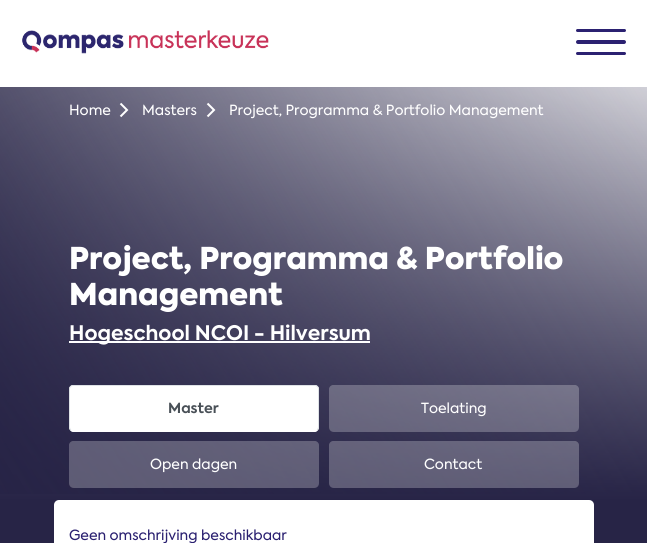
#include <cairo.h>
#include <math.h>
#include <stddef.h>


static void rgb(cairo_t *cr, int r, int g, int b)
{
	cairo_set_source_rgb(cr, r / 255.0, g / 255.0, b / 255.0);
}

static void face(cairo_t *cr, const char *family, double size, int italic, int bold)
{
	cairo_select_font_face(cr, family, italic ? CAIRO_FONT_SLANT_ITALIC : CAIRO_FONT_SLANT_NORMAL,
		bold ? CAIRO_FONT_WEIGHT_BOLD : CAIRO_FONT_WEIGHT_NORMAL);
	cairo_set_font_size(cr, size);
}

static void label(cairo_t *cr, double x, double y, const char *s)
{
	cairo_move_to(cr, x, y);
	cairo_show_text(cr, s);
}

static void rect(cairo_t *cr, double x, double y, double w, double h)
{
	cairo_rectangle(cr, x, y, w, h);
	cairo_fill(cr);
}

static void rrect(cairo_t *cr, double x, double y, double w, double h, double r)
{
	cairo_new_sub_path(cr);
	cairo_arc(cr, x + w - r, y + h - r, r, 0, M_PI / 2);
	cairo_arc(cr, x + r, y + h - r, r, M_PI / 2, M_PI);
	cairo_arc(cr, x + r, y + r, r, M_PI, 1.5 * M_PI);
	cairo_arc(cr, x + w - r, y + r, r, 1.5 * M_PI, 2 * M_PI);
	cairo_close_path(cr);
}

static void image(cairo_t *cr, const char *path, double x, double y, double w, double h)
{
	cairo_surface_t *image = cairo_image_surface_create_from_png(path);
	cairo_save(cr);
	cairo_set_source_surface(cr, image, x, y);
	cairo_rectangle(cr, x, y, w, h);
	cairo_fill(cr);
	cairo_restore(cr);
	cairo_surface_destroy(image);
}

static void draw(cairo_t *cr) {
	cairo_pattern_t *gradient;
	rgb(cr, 255, 255, 255);
	cairo_paint(cr);
	image(cr, "image0.png", 22, 30, 247, 24);
	rgb(cr, 43, 33, 113);
	rrect(cr, 576, 29, 50, 3, 1.5);
	cairo_fill(cr);
	rrect(cr, 576, 40, 50, 4, 2);
	cairo_fill(cr);
	rrect(cr, 576, 52, 50, 3, 1.5);
	cairo_fill(cr);
	gradient = cairo_pattern_create_linear(324, 500, 324, 0);
	cairo_pattern_add_color_stop_rgba(gradient, 0, 0.153, 0.141, 0.275, 1);
	cairo_pattern_add_color_stop_rgba(gradient, 1, 1, 1, 1, 1);
	cairo_set_source(cr, gradient);
	cairo_pattern_destroy(gradient);
	rect(cr, 0, 87, 647, 413);
	gradient = cairo_pattern_create_linear(-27, 453, 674, 47);
	cairo_pattern_add_color_stop_rgba(gradient, 0, 0.153, 0.141, 0.275, 1);
	cairo_pattern_add_color_stop_rgba(gradient, 1, 0.153, 0.141, 0.275, 0);
	cairo_set_source(cr, gradient);
	cairo_pattern_destroy(gradient);
	rect(cr, 0, 87, 647, 407);
	face(cr, "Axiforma", 14, 0, 0);
	rgb(cr, 255, 255, 255);
	label(cr, 69, 115, "Home");
	cairo_new_path(cr);
	cairo_move_to(cr, 120.5, 103.5);
	cairo_line_to(cr, 127, 110);
	cairo_line_to(cr, 120.5, 116.5);
	cairo_stroke(cr);
	label(cr, 142, 115, "Masters");
	cairo_new_path(cr);
	cairo_move_to(cr, 207.5, 103.5);
	cairo_line_to(cr, 214, 110);
	cairo_line_to(cr, 207.5, 116.5);
	cairo_stroke(cr);
	label(cr, 229, 115, "Project, Programma & Portfolio Management");
	face(cr, "Axiforma Black", 30, 0, 0);
	label(cr, 69, 269, "Project, Programma & Portfolio");
	label(cr, 69, 305, "Management");
	rect(cr, 69, 341, 301, 2);
	face(cr, "Axiforma", 20, 0, 1);
	label(cr, 69, 340, "Hogeschool NCOI - Hilversum");
	cairo_new_path(cr);
	cairo_move_to(cr, 73, 385);
	cairo_line_to(cr, 315, 385);
	cairo_curve_to(cr, 317, 385, 319, 387, 319, 389);
	cairo_line_to(cr, 319, 427);
	cairo_curve_to(cr, 319, 430, 317, 432, 314, 432);
	cairo_line_to(cr, 74, 432);
	cairo_curve_to(cr, 71, 432, 69, 430, 69, 427);
	cairo_line_to(cr, 69, 389);
	cairo_curve_to(cr, 69, 387, 71, 385, 73, 385);
	cairo_close_path(cr);
	cairo_fill(cr);
	cairo_new_path(cr);
	cairo_move_to(cr, 317, 430);
	cairo_curve_to(cr, 316.5, 431, 315, 431.5, 314, 431.5);
	cairo_line_to(cr, 74, 431.5);
	cairo_curve_to(cr, 73, 431.5, 71.5, 431, 71, 430);
	cairo_set_line_width(cr, 1);
	cairo_stroke(cr);
	cairo_new_path(cr);
	cairo_move_to(cr, 71, 430);
	cairo_curve_to(cr, 70, 429.5, 69.5, 428, 69.5, 427);
	cairo_line_to(cr, 69.5, 389);
	cairo_curve_to(cr, 69.5, 388, 70, 387, 70.5, 386.5);
	cairo_curve_to(cr, 71, 386, 72, 385.5, 73, 385.5);
	cairo_line_to(cr, 315, 385.5);
	cairo_curve_to(cr, 316, 385.5, 317, 386, 317.5, 386.5);
	cairo_curve_to(cr, 318, 387, 318.5, 388, 318.5, 389);
	cairo_line_to(cr, 318.5, 427);
	cairo_curve_to(cr, 318.5, 428, 318, 429.5, 317, 430);
	rgb(cr, 222, 226, 230);
	cairo_stroke(cr);
	face(cr, "Axiforma", 14, 0, 1);
	rgb(cr, 73, 80, 87);
	label(cr, 168, 413, "Master");
	cairo_set_source_rgba(cr, 1, 1, 1, 0.25);
	cairo_new_path(cr);
	cairo_move_to(cr, 333, 385);
	cairo_line_to(cr, 575, 385);
	cairo_curve_to(cr, 577, 385, 579, 387, 579, 389);
	cairo_line_to(cr, 579, 427);
	cairo_curve_to(cr, 579, 430, 577, 432, 574, 432);
	cairo_line_to(cr, 334, 432);
	cairo_curve_to(cr, 331, 432, 329, 430, 329, 427);
	cairo_line_to(cr, 329, 389);
	cairo_curve_to(cr, 329, 387, 331, 385, 333, 385);
	cairo_close_path(cr);
	cairo_fill(cr);
	face(cr, "Axiforma", 14, 0, 0);
	rgb(cr, 255, 255, 255);
	label(cr, 421, 413, "Toelating");
	cairo_set_source_rgba(cr, 1, 1, 1, 0.25);
	cairo_new_path(cr);
	cairo_move_to(cr, 73, 441);
	cairo_line_to(cr, 315, 441);
	cairo_curve_to(cr, 317, 441, 319, 443, 319, 445);
	cairo_line_to(cr, 319, 483);
	cairo_curve_to(cr, 319, 486, 317, 488, 314, 488);
	cairo_line_to(cr, 74, 488);
	cairo_curve_to(cr, 71, 488, 69, 486, 69, 483);
	cairo_line_to(cr, 69, 445);
	cairo_curve_to(cr, 69, 443, 71, 441, 73, 441);
	cairo_close_path(cr);
	cairo_fill(cr);
	rgb(cr, 255, 255, 255);
	label(cr, 150, 469, "Open dagen");
	cairo_set_source_rgba(cr, 1, 1, 1, 0.25);
	cairo_new_path(cr);
	cairo_move_to(cr, 333, 441);
	cairo_line_to(cr, 575, 441);
	cairo_curve_to(cr, 577, 441, 579, 443, 579, 445);
	cairo_line_to(cr, 579, 483);
	cairo_curve_to(cr, 579, 486, 577, 488, 574, 488);
	cairo_line_to(cr, 334, 488);
	cairo_curve_to(cr, 331, 488, 329, 486, 329, 483);
	cairo_line_to(cr, 329, 445);
	cairo_curve_to(cr, 329, 443, 331, 441, 333, 441);
	cairo_close_path(cr);
	cairo_fill(cr);
	rgb(cr, 255, 255, 255);
	label(cr, 424, 469, "Contact");
	rgb(cr, 39, 36, 70);
	rect(cr, 0, 500, 647, 43);
	rgb(cr, 255, 255, 255);
	rrect(cr, 54, 500, 540, 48, 5);
	cairo_fill(cr);
	rgb(cr, 43, 33, 113);
	label(cr, 69, 540, "Geen omschrijving beschikbaar");
}

int main(void) {
	cairo_surface_t *surface = cairo_image_surface_create(CAIRO_FORMAT_RGB24, 647, 543);
	cairo_t *cr = cairo_create(surface);
	cairo_font_options_t *options = cairo_font_options_create();
	cairo_font_options_set_hint_metrics(options, CAIRO_HINT_METRICS_OFF);
	cairo_font_options_set_hint_style(options, CAIRO_HINT_STYLE_NONE);
	cairo_set_font_options(cr, options);
	cairo_set_miter_limit(cr, 4);
	draw(cr);
	cairo_surface_write_to_png(surface, "render.png");
	cairo_font_options_destroy(options);
	cairo_destroy(cr);
	cairo_surface_destroy(surface);
	return 0;
}
